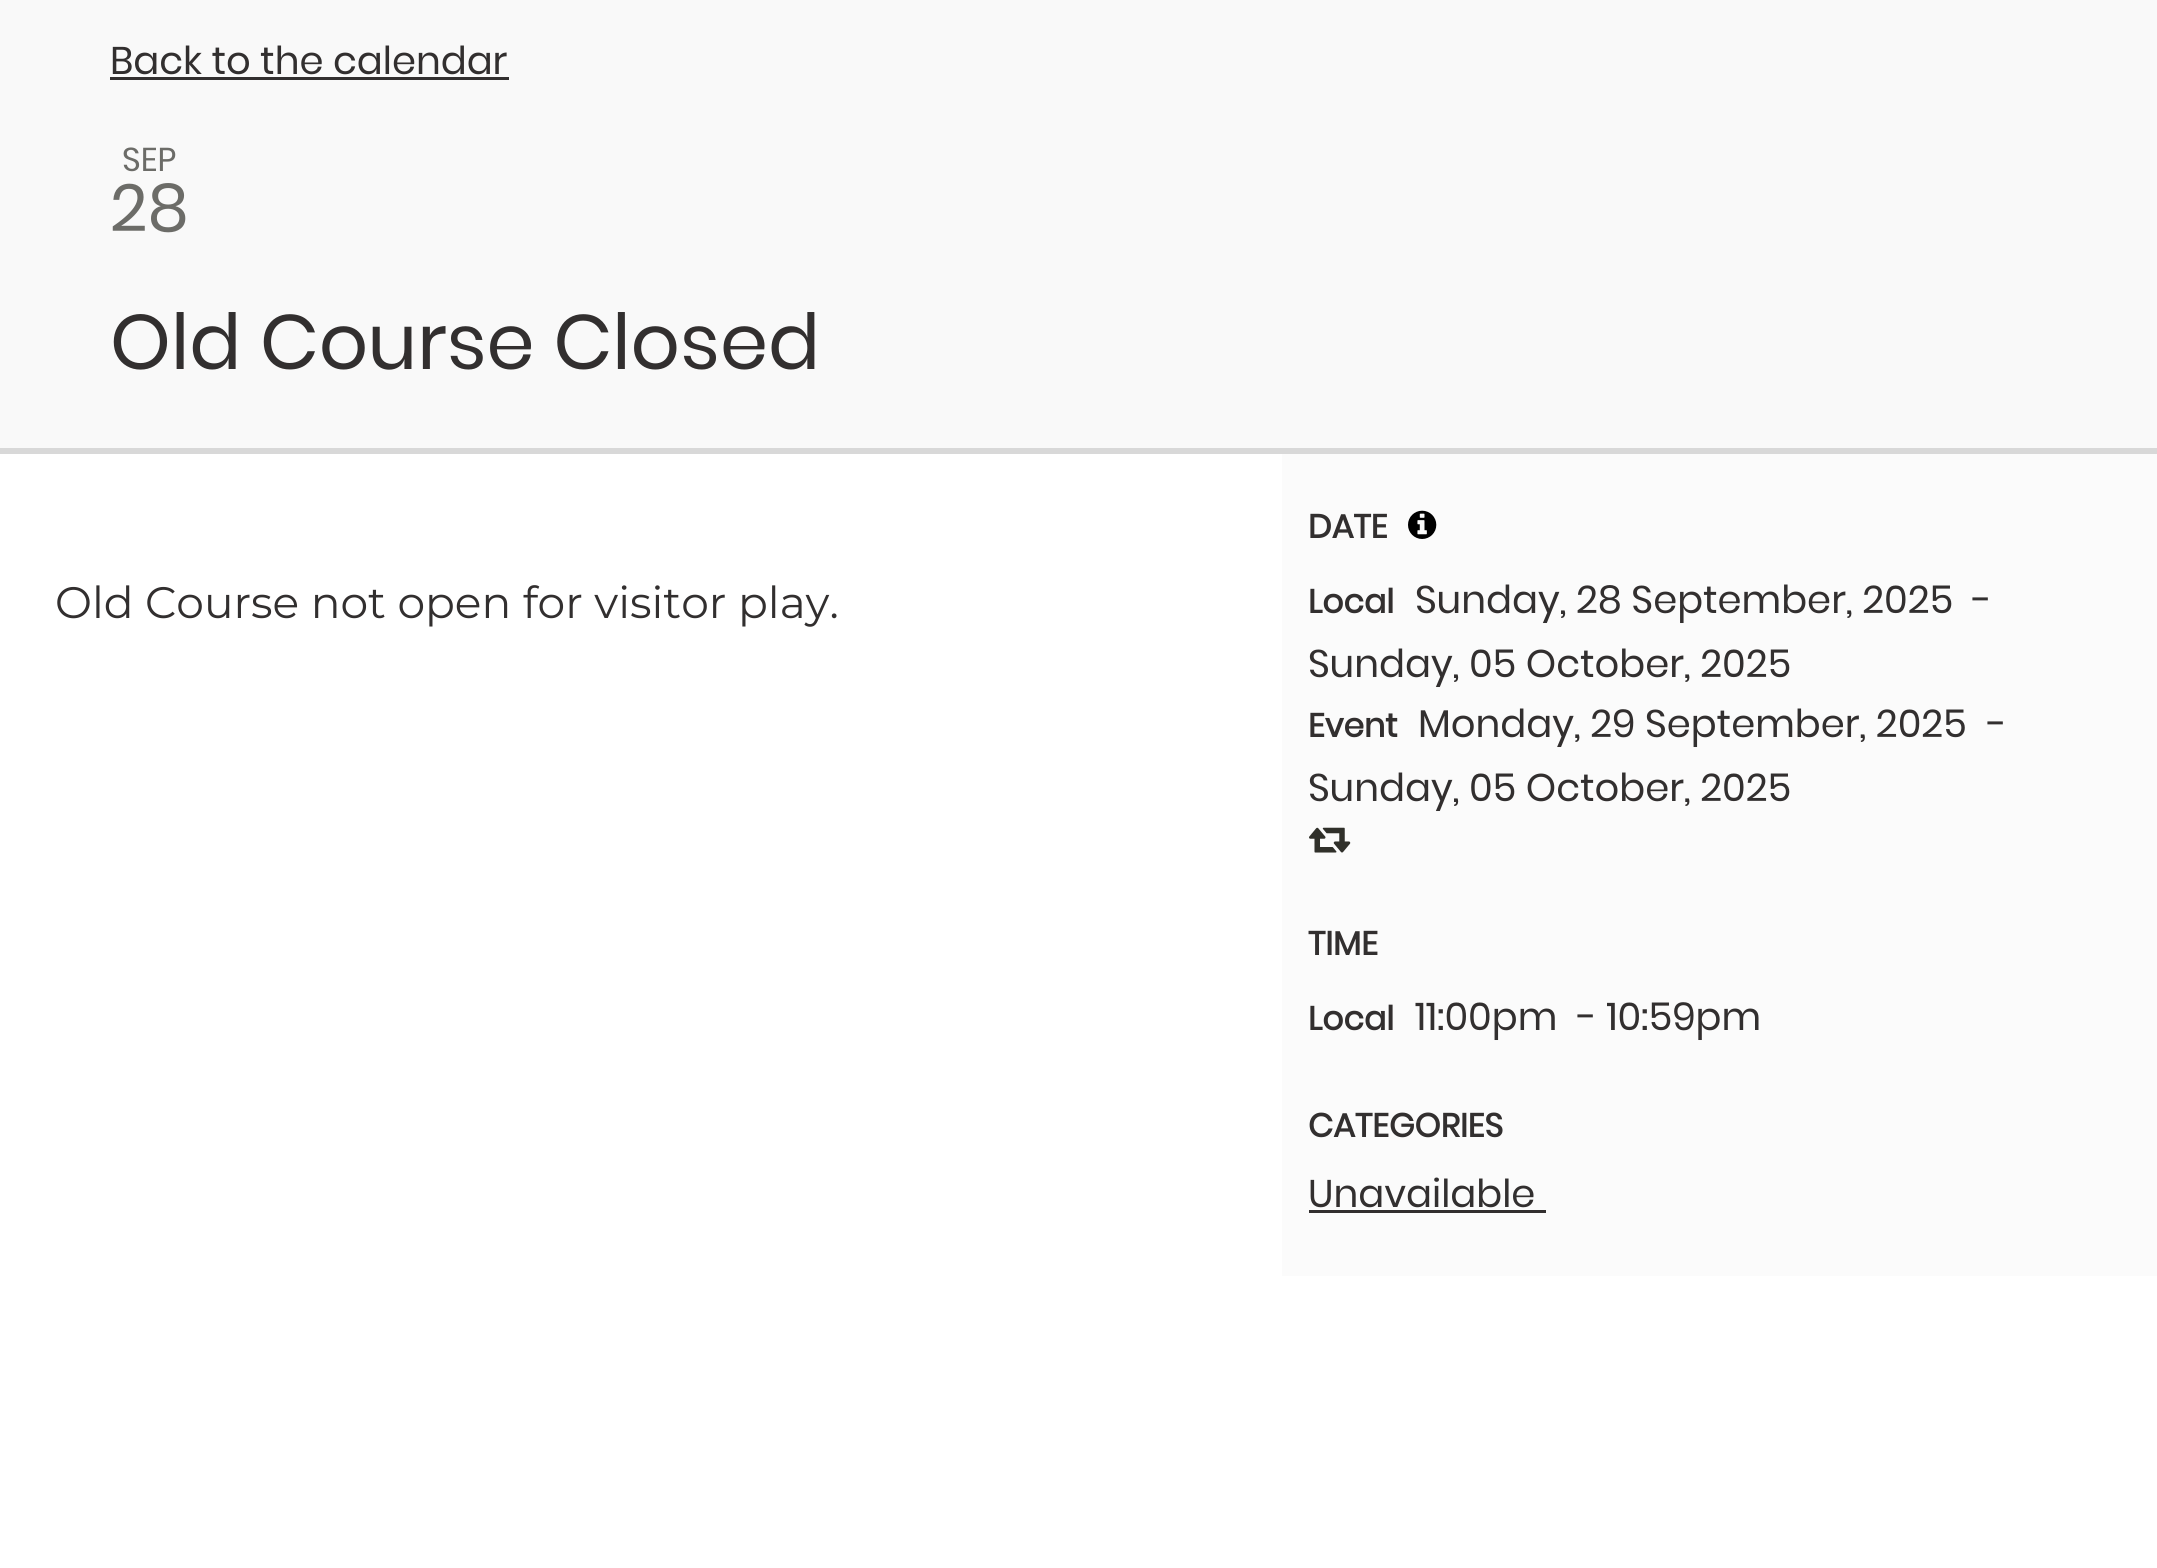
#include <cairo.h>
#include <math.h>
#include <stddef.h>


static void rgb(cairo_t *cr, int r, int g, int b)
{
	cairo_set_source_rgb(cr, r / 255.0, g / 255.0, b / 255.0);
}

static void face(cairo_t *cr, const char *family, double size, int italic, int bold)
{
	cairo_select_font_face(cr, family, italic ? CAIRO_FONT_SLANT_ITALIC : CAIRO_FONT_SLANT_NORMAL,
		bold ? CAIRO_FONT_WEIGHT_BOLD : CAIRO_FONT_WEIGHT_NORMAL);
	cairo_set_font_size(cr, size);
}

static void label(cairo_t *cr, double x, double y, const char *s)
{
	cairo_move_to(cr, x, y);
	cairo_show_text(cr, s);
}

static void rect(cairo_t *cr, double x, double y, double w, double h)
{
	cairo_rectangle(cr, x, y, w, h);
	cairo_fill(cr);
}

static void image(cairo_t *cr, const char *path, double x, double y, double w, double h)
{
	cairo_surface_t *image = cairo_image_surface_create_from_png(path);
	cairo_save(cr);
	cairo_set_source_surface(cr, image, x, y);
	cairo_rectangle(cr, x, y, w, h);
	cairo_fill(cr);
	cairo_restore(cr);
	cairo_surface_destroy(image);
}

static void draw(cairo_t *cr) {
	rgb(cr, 255, 255, 255);
	cairo_paint(cr);
	rgb(cr, 249, 249, 249);
	rect(cr, 0, 0, 2157, 448);
	rgb(cr, 216, 216, 216);
	rect(cr, 0, 448, 2157, 6);
	face(cr, "Poppins", 38.5, 0, 0);
	rgb(cr, 50, 47, 47);
	label(cr, 110, 74, "Back to the calendar");
	rect(cr, 110, 77, 399, 3);
	face(cr, "Poppins", 33, 0, 0);
	rgb(cr, 108, 108, 104);
	label(cr, 122, 171, "SEP");
	face(cr, "Poppins", 66, 0, 0);
	label(cr, 110, 231, "28");
	face(cr, "Poppins", 77, 0, 0);
	rgb(cr, 50, 47, 47);
	label(cr, 110, 369, "Old Course Closed");
	face(cr, "Montserrat", 44, 0, 0);
	label(cr, 55, 618, "Old Course not open for visitor play.");
	rgb(cr, 251, 251, 251);
	rect(cr, 1282, 454, 875, 822);
	face(cr, "Poppins", 33, 0, 1);
	rgb(cr, 50, 47, 47);
	label(cr, 1308, 538, "DATE");
	image(cr, "image0.png", 1408, 510, 29, 29);
	label(cr, 1308, 613, "Local");
	face(cr, "Poppins", 38.5, 0, 0);
	label(cr, 1415, 613, "Sunday, 28 September, 2025");
	label(cr, 1973, 613, "-");
	label(cr, 1308, 677, "Sunday, 05 October, 2025");
	face(cr, "Poppins", 33, 0, 1);
	label(cr, 1308, 737, "Event");
	face(cr, "Poppins", 38.5, 0, 0);
	label(cr, 1418, 737, "Monday, 29 September, 2025");
	label(cr, 1988, 737, "-");
	label(cr, 1308, 801, "Sunday, 05 October, 2025");
	image(cr, "image1.png", 1309, 827, 42, 26);
	face(cr, "Poppins", 33, 0, 1);
	label(cr, 1308, 955, "TIME");
	label(cr, 1308, 1030, "Local");
	face(cr, "Poppins", 38.5, 0, 0);
	label(cr, 1415, 1030, "11:00pm");
	label(cr, 1578, 1030, "- 10:59pm");
	face(cr, "Poppins", 33, 0, 1);
	label(cr, 1308, 1137, "CATEGORIES");
	face(cr, "Poppins", 38.5, 0, 0);
	label(cr, 1308, 1207, "Unavailable");
	rect(cr, 1309, 1210, 237, 3);
}

int main(void) {
	cairo_surface_t *surface = cairo_image_surface_create(CAIRO_FORMAT_RGB24, 2157, 1568);
	cairo_t *cr = cairo_create(surface);
	cairo_font_options_t *options = cairo_font_options_create();
	cairo_font_options_set_hint_metrics(options, CAIRO_HINT_METRICS_OFF);
	cairo_font_options_set_hint_style(options, CAIRO_HINT_STYLE_NONE);
	cairo_set_font_options(cr, options);
	cairo_set_miter_limit(cr, 4);
	draw(cr);
	cairo_surface_write_to_png(surface, "render.png");
	cairo_font_options_destroy(options);
	cairo_destroy(cr);
	cairo_surface_destroy(surface);
	return 0;
}
